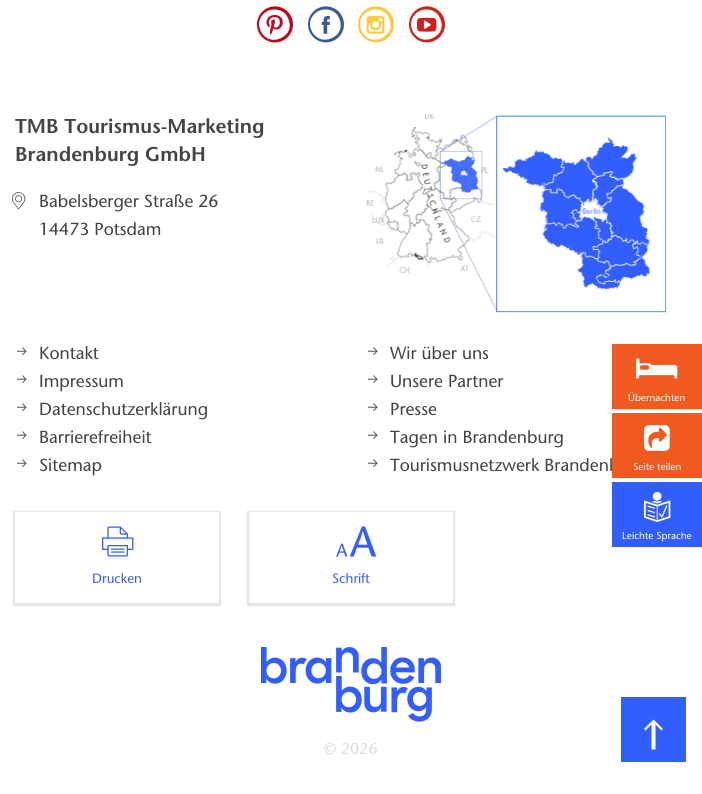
#include <cairo.h>
#include <math.h>
#include <stddef.h>


static void rgb(cairo_t *cr, int r, int g, int b)
{
	cairo_set_source_rgb(cr, r / 255.0, g / 255.0, b / 255.0);
}

static void face(cairo_t *cr, const char *family, double size, int italic, int bold)
{
	cairo_select_font_face(cr, family, italic ? CAIRO_FONT_SLANT_ITALIC : CAIRO_FONT_SLANT_NORMAL,
		bold ? CAIRO_FONT_WEIGHT_BOLD : CAIRO_FONT_WEIGHT_NORMAL);
	cairo_set_font_size(cr, size);
}

static void label(cairo_t *cr, double x, double y, const char *s)
{
	cairo_move_to(cr, x, y);
	cairo_show_text(cr, s);
}

static void rect(cairo_t *cr, double x, double y, double w, double h)
{
	cairo_rectangle(cr, x, y, w, h);
	cairo_fill(cr);
}

static void rrect(cairo_t *cr, double x, double y, double w, double h, double r)
{
	cairo_new_sub_path(cr);
	cairo_arc(cr, x + w - r, y + h - r, r, 0, M_PI / 2);
	cairo_arc(cr, x + r, y + h - r, r, M_PI / 2, M_PI);
	cairo_arc(cr, x + r, y + r, r, M_PI, 1.5 * M_PI);
	cairo_arc(cr, x + w - r, y + r, r, 1.5 * M_PI, 2 * M_PI);
	cairo_close_path(cr);
}

static void soft_shadow(cairo_t *cr, double x, double y, double w, double h, double r, double blur, double alpha)
{
	cairo_push_group_with_content(cr, CAIRO_CONTENT_ALPHA);
	cairo_set_operator(cr, CAIRO_OPERATOR_SOURCE);
	for (int i = 15; i >= -15 && fmin(w, h) + blur * i / 3 > 0; i -= 2) {
		double e = blur * i / 6;
		cairo_set_source_rgba(cr, 0, 0, 0, alpha * erfc((i - 1) / 8.5) / 2);
		rrect(cr, x - e, y - e, w + 2 * e, h + 2 * e, fmax(0, fmin(r + e + blur * .6, fmin(w, h) / 2 + e)));
		cairo_fill(cr);
	}
	cairo_pattern_t *soft = cairo_pop_group(cr);
	cairo_mask(cr, soft);
	cairo_pattern_destroy(soft);
}

static void image(cairo_t *cr, const char *path, double x, double y, double w, double h)
{
	cairo_surface_t *image = cairo_image_surface_create_from_png(path);
	cairo_save(cr);
	cairo_set_source_surface(cr, image, x, y);
	cairo_rectangle(cr, x, y, w, h);
	cairo_fill(cr);
	cairo_restore(cr);
	cairo_surface_destroy(image);
}

static void draw(cairo_t *cr) {
	rgb(cr, 255, 255, 255);
	cairo_paint(cr);
	image(cr, "image0.png", 257, 6, 36, 37);
	image(cr, "image1.png", 308, 6, 36, 37);
	image(cr, "image2.png", 358, 6, 36, 37);
	image(cr, "image3.png", 409, 6, 36, 37);
	face(cr, "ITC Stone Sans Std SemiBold", 20, 0, 0);
	rgb(cr, 68, 68, 68);
	label(cr, 15, 133, "TMB Tourismus-Marketing");
	label(cr, 15, 161, "Brandenburg GmbH");
	image(cr, "image4.png", 12, 192, 14, 18);
	face(cr, "ITC Stone Sans Std Medium", 17.5, 0, 0);
	label(cr, 39, 207, "Babelsberger Straße 26");
	label(cr, 39, 235, "14473 Potsdam");
	image(cr, "image5.png", 366, 114, 300, 199);
	image(cr, "image6.png", 17, 347, 10, 9);
	label(cr, 39, 359, "Kontakt");
	image(cr, "image6.png", 17, 375, 10, 9);
	label(cr, 39, 387, "Impressum");
	image(cr, "image6.png", 17, 403, 10, 9);
	label(cr, 39, 415, "Datenschutzerklärung");
	image(cr, "image6.png", 17, 431, 10, 9);
	label(cr, 39, 443, "Barrierefreiheit");
	image(cr, "image6.png", 17, 459, 10, 9);
	label(cr, 39, 471, "Sitemap");
	image(cr, "image6.png", 368, 347, 10, 9);
	label(cr, 390, 359, "Wir über uns");
	image(cr, "image6.png", 368, 375, 10, 9);
	label(cr, 390, 387, "Unsere Partner");
	image(cr, "image6.png", 368, 403, 10, 9);
	label(cr, 390, 415, "Presse");
	image(cr, "image6.png", 368, 431, 10, 9);
	label(cr, 390, 443, "Tagen in Brandenburg");
	image(cr, "image6.png", 368, 459, 10, 9);
	label(cr, 390, 471, "Tourismusnetzwerk Brandenb");
	cairo_save(cr);
	cairo_set_fill_rule(cr, CAIRO_FILL_RULE_EVEN_ODD);
	cairo_new_path(cr);
	cairo_move_to(cr, 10, 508);
	cairo_line_to(cr, 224, 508);
	cairo_line_to(cr, 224, 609);
	cairo_line_to(cr, 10, 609);
	cairo_close_path(cr);
	cairo_move_to(cr, 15, 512);
	cairo_line_to(cr, 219, 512);
	cairo_line_to(cr, 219, 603);
	cairo_line_to(cr, 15, 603);
	cairo_close_path(cr);
	cairo_clip(cr);
	rgb(cr, 222, 222, 222);
	soft_shadow(cr, 13, 511, 208, 95, 0, 0.5, 0.8);
	cairo_restore(cr);
	image(cr, "image7.png", 102, 526, 32, 31);
	face(cr, "ITC Stone Sans Std Medium", 13.5, 0, 0);
	rgb(cr, 50, 94, 255);
	label(cr, 92, 583, "Drucken");
	cairo_save(cr);
	cairo_set_fill_rule(cr, CAIRO_FILL_RULE_EVEN_ODD);
	cairo_new_path(cr);
	cairo_move_to(cr, 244, 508);
	cairo_line_to(cr, 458, 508);
	cairo_line_to(cr, 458, 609);
	cairo_line_to(cr, 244, 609);
	cairo_close_path(cr);
	cairo_move_to(cr, 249, 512);
	cairo_line_to(cr, 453, 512);
	cairo_line_to(cr, 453, 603);
	cairo_line_to(cr, 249, 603);
	cairo_close_path(cr);
	cairo_clip(cr);
	rgb(cr, 222, 222, 222);
	soft_shadow(cr, 247, 511, 208, 95, 0, 0.5, 0.8);
	cairo_restore(cr);
	image(cr, "image8.png", 336, 526, 41, 31);
	label(cr, 332, 583, "Schrift");
	image(cr, "image9.png", 261, 647, 180, 75);
	face(cr, "ITC Stone Sans Std Medium", 16, 0, 0);
	rgb(cr, 222, 222, 222);
	label(cr, 324, 754, "© 2026");
	rgb(cr, 240, 89, 31);
	rect(cr, 612, 344, 90, 65);
	image(cr, "image10.png", 636, 358, 42, 21);
	face(cr, "ITC Stone Sans Std Medium", 10, 0, 0);
	rgb(cr, 254, 254, 254);
	label(cr, 628, 401, "Übernachten");
	rgb(cr, 240, 89, 31);
	rect(cr, 612, 413, 90, 65);
	image(cr, "image11.png", 644, 425, 26, 26);
	rgb(cr, 254, 254, 254);
	label(cr, 633, 470, "Seite teilen");
	rgb(cr, 50, 94, 255);
	rect(cr, 612, 482, 90, 65);
	image(cr, "image12.png", 644, 492, 27, 30);
	rgb(cr, 254, 254, 254);
	label(cr, 622, 539, "Leichte Sprache");
	rgb(cr, 50, 94, 255);
	rect(cr, 621, 697, 65, 65);
	rgb(cr, 254, 254, 254);
	cairo_new_path(cr);
	cairo_move_to(cr, 655.5, 749.5);
	cairo_line_to(cr, 655.5, 724.5);
	cairo_line_to(cr, 661.5, 730.5);
	cairo_line_to(cr, 663, 729);
	cairo_line_to(cr, 653.5, 719.5);
	cairo_line_to(cr, 644, 729);
	cairo_line_to(cr, 645.5, 730.5);
	cairo_line_to(cr, 651.5, 724.5);
	cairo_line_to(cr, 651.5, 749.5);
	cairo_close_path(cr);
	cairo_fill(cr);
}

int main(void) {
	cairo_surface_t *surface = cairo_image_surface_create(CAIRO_FORMAT_RGB24, 702, 794);
	cairo_t *cr = cairo_create(surface);
	cairo_font_options_t *options = cairo_font_options_create();
	cairo_font_options_set_hint_metrics(options, CAIRO_HINT_METRICS_OFF);
	cairo_font_options_set_hint_style(options, CAIRO_HINT_STYLE_NONE);
	cairo_set_font_options(cr, options);
	cairo_set_miter_limit(cr, 4);
	draw(cr);
	cairo_surface_write_to_png(surface, "render.png");
	cairo_font_options_destroy(options);
	cairo_destroy(cr);
	cairo_surface_destroy(surface);
	return 0;
}
